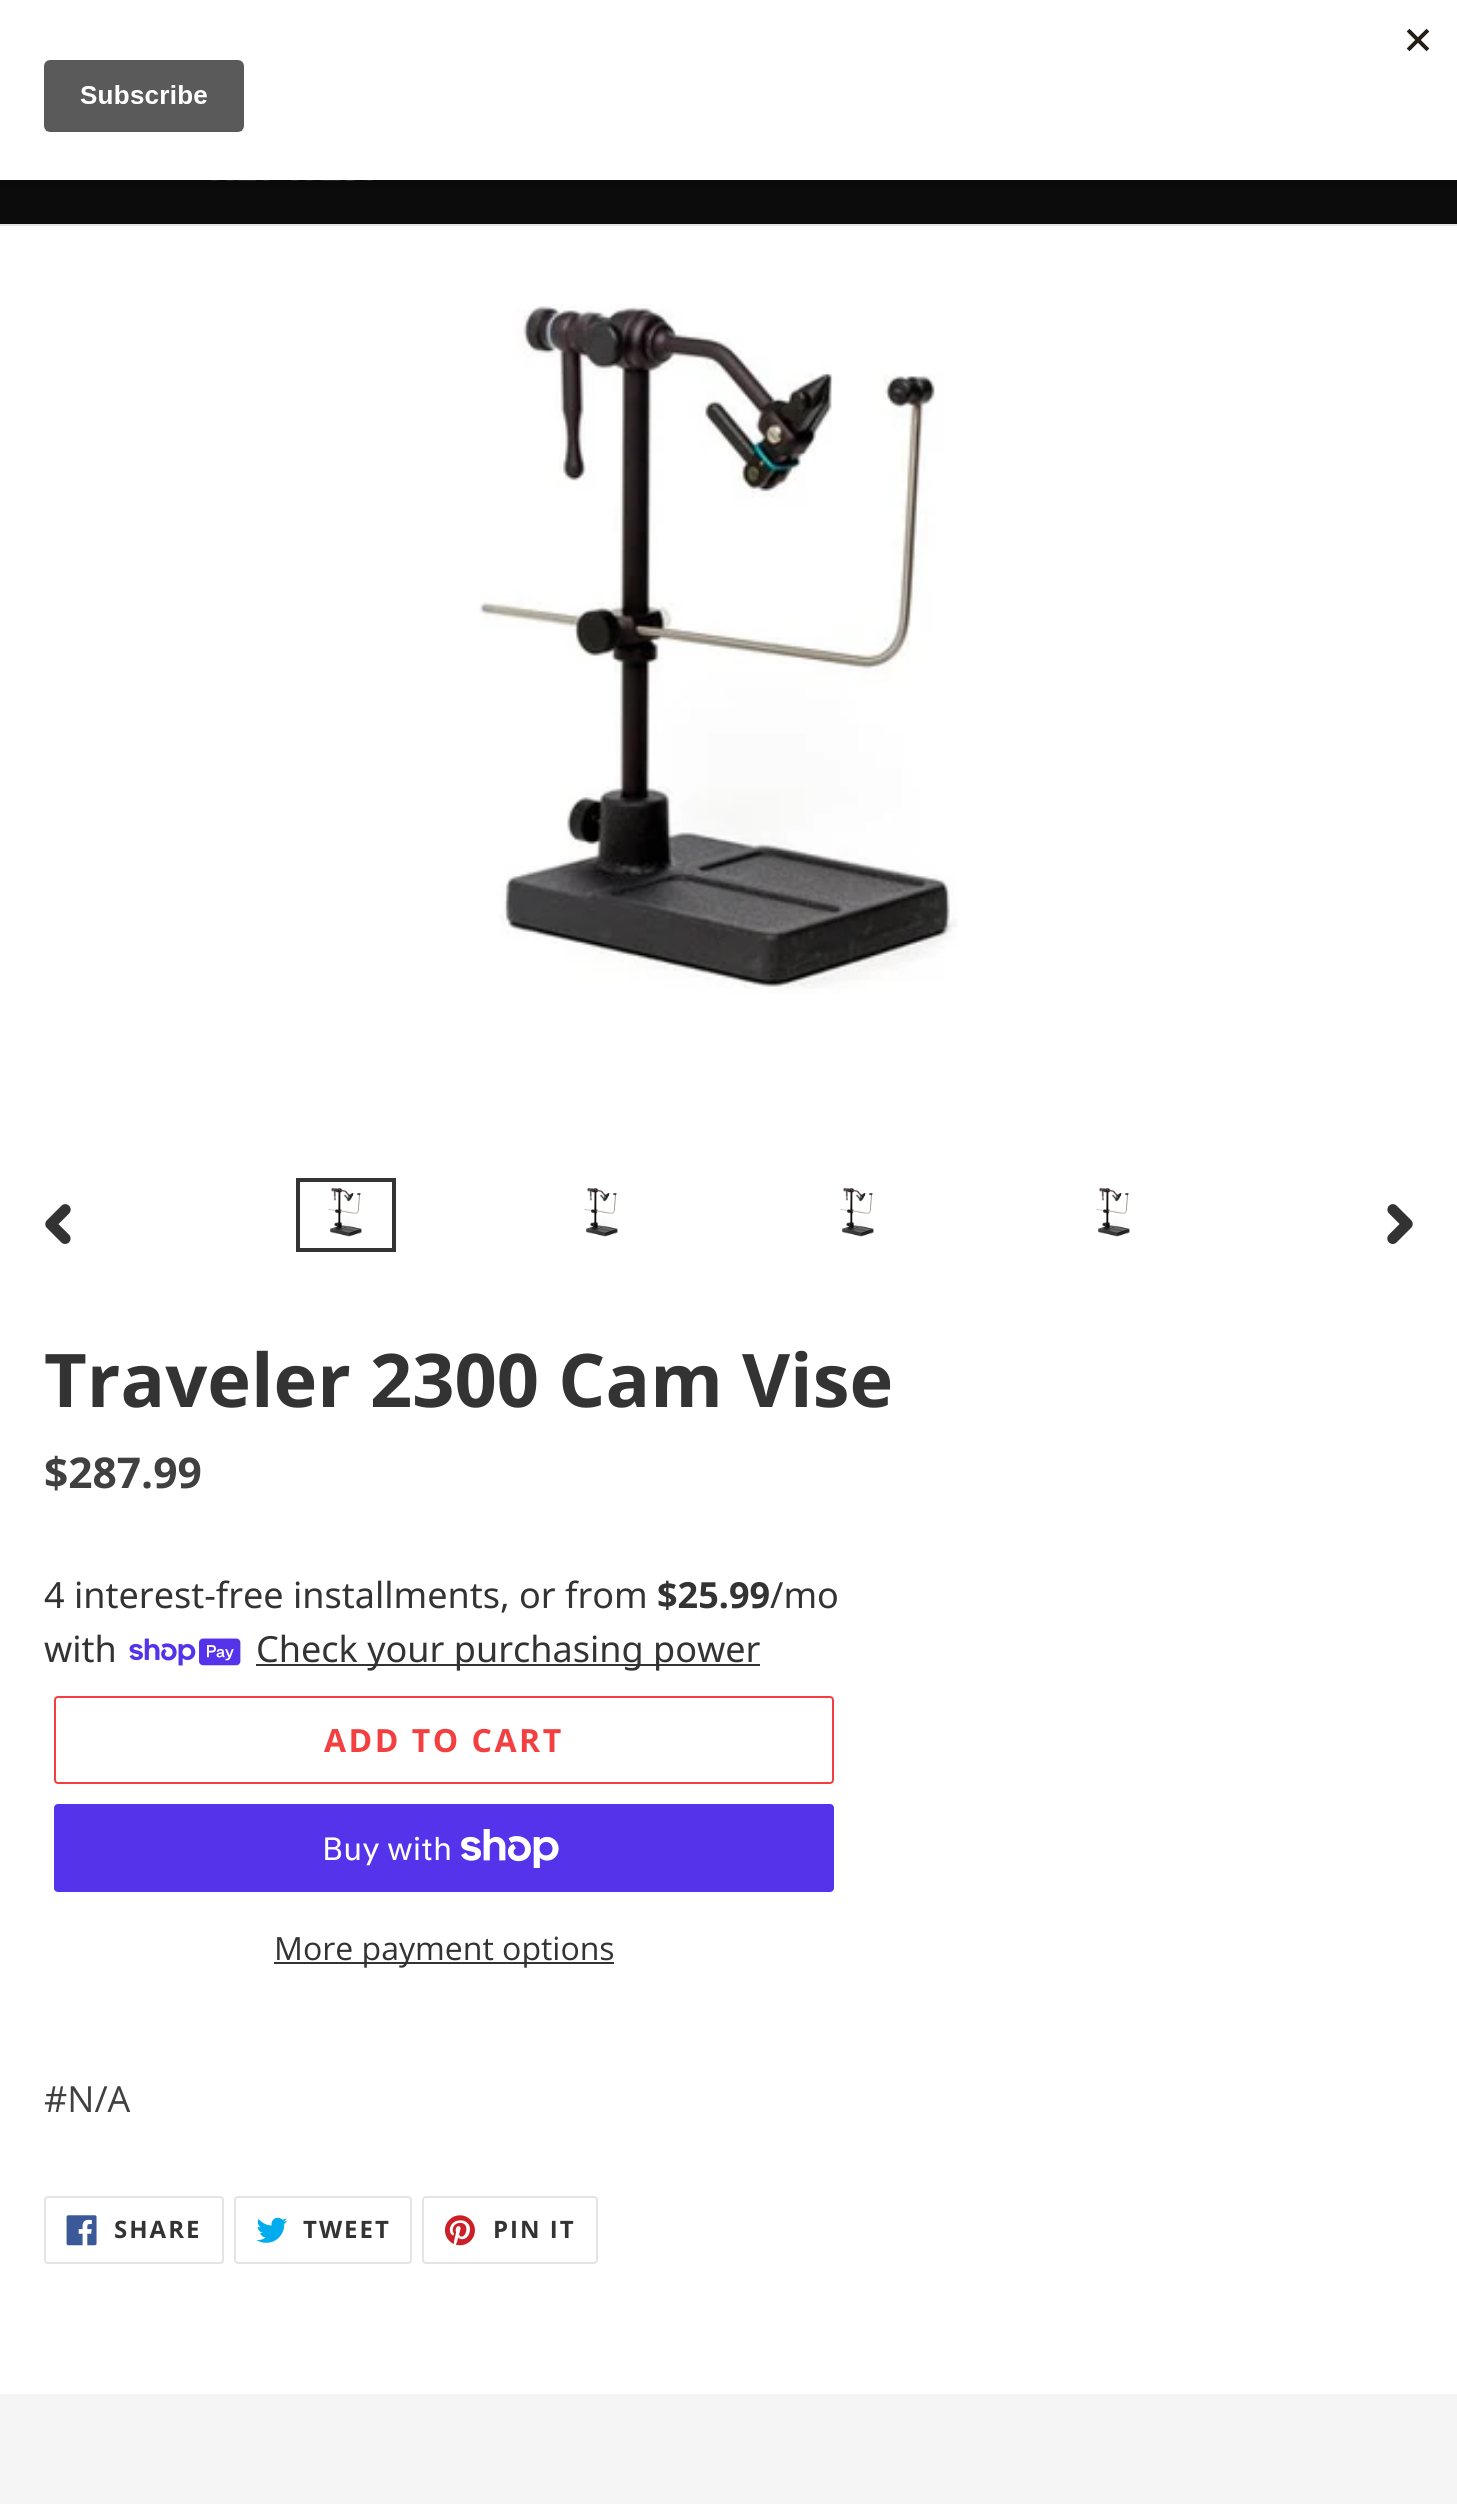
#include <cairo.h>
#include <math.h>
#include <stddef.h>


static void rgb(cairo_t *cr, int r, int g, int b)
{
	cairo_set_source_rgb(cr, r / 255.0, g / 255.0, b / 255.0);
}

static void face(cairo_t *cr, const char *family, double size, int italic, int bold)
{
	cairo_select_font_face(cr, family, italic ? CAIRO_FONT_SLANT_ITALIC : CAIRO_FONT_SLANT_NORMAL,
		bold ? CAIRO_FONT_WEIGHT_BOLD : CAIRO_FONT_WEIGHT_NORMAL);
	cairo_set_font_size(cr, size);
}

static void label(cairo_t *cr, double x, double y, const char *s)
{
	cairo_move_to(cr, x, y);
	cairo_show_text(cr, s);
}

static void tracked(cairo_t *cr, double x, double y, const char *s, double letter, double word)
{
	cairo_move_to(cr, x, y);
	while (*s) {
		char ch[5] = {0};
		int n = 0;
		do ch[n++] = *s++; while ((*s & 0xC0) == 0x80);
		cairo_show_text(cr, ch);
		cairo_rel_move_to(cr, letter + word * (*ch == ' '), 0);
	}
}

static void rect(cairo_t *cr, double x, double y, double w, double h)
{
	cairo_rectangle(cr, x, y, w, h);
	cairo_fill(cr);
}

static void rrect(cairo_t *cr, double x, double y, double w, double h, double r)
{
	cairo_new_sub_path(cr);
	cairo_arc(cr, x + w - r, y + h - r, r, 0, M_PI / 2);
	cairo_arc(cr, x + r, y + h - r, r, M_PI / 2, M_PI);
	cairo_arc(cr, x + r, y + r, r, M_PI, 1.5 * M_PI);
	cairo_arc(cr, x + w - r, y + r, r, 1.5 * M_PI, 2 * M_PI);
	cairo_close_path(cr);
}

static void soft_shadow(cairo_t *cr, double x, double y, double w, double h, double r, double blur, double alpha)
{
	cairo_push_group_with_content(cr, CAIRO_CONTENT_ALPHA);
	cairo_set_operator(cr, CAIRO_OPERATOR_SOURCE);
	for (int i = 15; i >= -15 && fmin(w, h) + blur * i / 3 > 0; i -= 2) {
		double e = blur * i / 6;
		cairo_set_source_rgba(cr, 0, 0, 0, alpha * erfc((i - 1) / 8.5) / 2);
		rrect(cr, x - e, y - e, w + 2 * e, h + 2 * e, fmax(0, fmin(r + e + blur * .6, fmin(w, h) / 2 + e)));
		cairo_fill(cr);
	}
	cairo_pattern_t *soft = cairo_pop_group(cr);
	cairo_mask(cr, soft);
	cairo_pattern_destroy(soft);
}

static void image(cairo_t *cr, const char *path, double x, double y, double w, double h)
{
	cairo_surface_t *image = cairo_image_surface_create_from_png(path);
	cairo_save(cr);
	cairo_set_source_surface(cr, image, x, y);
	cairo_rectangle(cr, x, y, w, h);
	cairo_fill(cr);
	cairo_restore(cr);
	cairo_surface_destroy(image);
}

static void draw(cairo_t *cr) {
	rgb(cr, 255, 255, 255);
	cairo_paint(cr);
	rgb(cr, 12, 12, 12);
	rect(cr, 0, 180, 1457, 44);
	image(cr, "image1.png", 210, 180, 163, 1);
	rgb(cr, 0, 0, 0);
	soft_shadow(cr, 0, 6, 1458, 180, 0, 6, 0.2);
	rgb(cr, 255, 255, 255);
	rect(cr, 0, 0, 1457, 180);
	image(cr, "image0.png", 44, 28, 1386, 104);
	rgb(cr, 228, 228, 228);
	rect(cr, 0, 224, 1457, 2);
	image(cr, "image2.png", 479, 304, 479, 690);
	image(cr, "image3.png", 45, 1204, 26, 40);
	cairo_rectangle(cr, 298, 1180, 96, 70);
	rgb(cr, 51, 51, 51);
	cairo_set_line_width(cr, 4);
	cairo_stroke(cr);
	image(cr, "image4.png", 328, 1187, 34, 50);
	image(cr, "image5.png", 584, 1187, 34, 50);
	image(cr, "image4.png", 840, 1187, 34, 50);
	image(cr, "image6.png", 1096, 1187, 34, 50);
	image(cr, "image7.png", 1387, 1204, 26, 40);
	face(cr, "Open Sans", 74, 0, 1);
	label(cr, 44, 1407, "Traveler 2300 Cam Vise");
	face(cr, "Open Sans", 42.5, 0, 1);
	rgb(cr, 64, 64, 64);
	label(cr, 44, 1488, "$287.99");
	face(cr, "Noto Sans", 36, 0, 0);
	rgb(cr, 51, 51, 51);
	label(cr, 44, 1608, "4 interest-free installments, or from");
	face(cr, "Noto Sans", 36, 0, 1);
	label(cr, 657, 1608, "$25.99");
	face(cr, "Noto Sans", 36, 0, 0);
	label(cr, 770, 1608, "/mo");
	label(cr, 44, 1662, "with");
	image(cr, "image8.png", 129, 1638, 112, 28);
	rect(cr, 256, 1664, 504, 2);
	label(cr, 256, 1662, "Check your purchasing power");
	rrect(cr, 55, 1697, 778, 86, 3);
	rgb(cr, 243, 63, 63);
	cairo_set_line_width(cr, 2);
	cairo_stroke(cr);
	face(cr, "Open Sans", 32, 0, 1);
	tracked(cr, 324, 1752, "ADD TO CART", 2.5, 0);
	rgb(cr, 84, 51, 235);
	rrect(cr, 54, 1804, 780, 88, 4);
	cairo_fill(cr);
	face(cr, "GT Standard", 32, 0, 0);
	rgb(cr, 255, 255, 255);
	label(cr, 322, 1860, "Buy with");
	image(cr, "image9.png", 461, 1829, 98, 39);
	rgb(cr, 51, 51, 51);
	rect(cr, 274, 1962, 340, 2);
	face(cr, "Open Sans", 32, 0, 0);
	label(cr, 274, 1960, "More payment options");
	face(cr, "Open Sans", 36, 0, 0);
	rgb(cr, 64, 64, 64);
	label(cr, 44, 2112, "#N/A");
	rrect(cr, 45, 2197, 178, 66, 3);
	rgb(cr, 228, 228, 228);
	cairo_stroke(cr);
	image(cr, "image10.png", 66, 2215, 31, 31);
	face(cr, "Open Sans", 24, 0, 1);
	rgb(cr, 51, 51, 51);
	tracked(cr, 114, 2238, "SHARE", 2, 0);
	rrect(cr, 235, 2197, 176, 66, 3);
	rgb(cr, 228, 228, 228);
	cairo_stroke(cr);
	image(cr, "image11.png", 256, 2217, 32, 26);
	rgb(cr, 51, 51, 51);
	tracked(cr, 303, 2238, "TWEET", 2, 0);
	rrect(cr, 423, 2197, 174, 66, 3);
	rgb(cr, 228, 228, 228);
	cairo_stroke(cr);
	image(cr, "image12.png", 444, 2215, 31, 31);
	rgb(cr, 51, 51, 51);
	tracked(cr, 493, 2238, "PIN IT", 2, 0);
	rgb(cr, 245, 245, 245);
	rect(cr, 0, 2394, 1457, 110);
}

int main(void) {
	cairo_surface_t *surface = cairo_image_surface_create(CAIRO_FORMAT_RGB24, 1457, 2504);
	cairo_t *cr = cairo_create(surface);
	cairo_font_options_t *options = cairo_font_options_create();
	cairo_font_options_set_hint_metrics(options, CAIRO_HINT_METRICS_OFF);
	cairo_font_options_set_hint_style(options, CAIRO_HINT_STYLE_NONE);
	cairo_set_font_options(cr, options);
	cairo_set_miter_limit(cr, 4);
	draw(cr);
	cairo_surface_write_to_png(surface, "render.png");
	cairo_font_options_destroy(options);
	cairo_destroy(cr);
	cairo_surface_destroy(surface);
	return 0;
}
